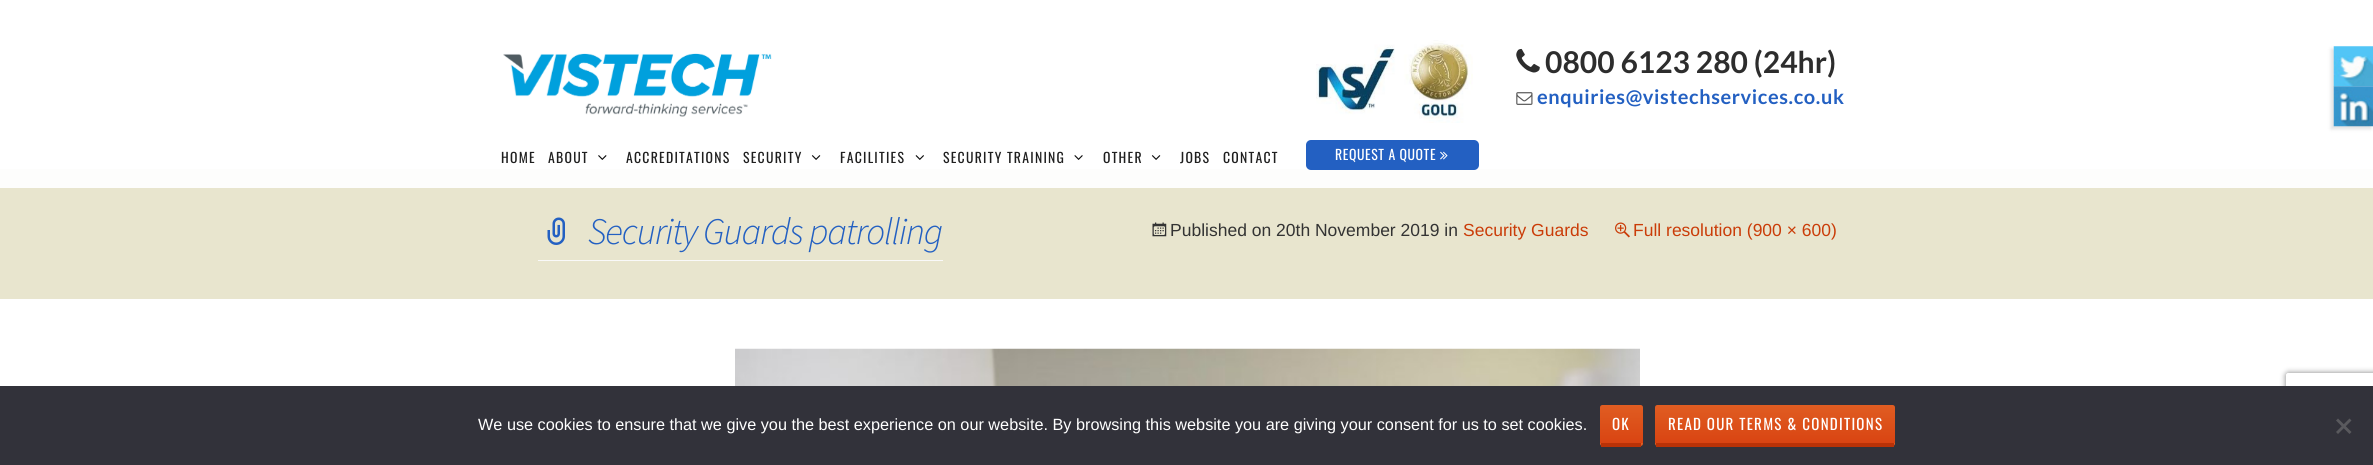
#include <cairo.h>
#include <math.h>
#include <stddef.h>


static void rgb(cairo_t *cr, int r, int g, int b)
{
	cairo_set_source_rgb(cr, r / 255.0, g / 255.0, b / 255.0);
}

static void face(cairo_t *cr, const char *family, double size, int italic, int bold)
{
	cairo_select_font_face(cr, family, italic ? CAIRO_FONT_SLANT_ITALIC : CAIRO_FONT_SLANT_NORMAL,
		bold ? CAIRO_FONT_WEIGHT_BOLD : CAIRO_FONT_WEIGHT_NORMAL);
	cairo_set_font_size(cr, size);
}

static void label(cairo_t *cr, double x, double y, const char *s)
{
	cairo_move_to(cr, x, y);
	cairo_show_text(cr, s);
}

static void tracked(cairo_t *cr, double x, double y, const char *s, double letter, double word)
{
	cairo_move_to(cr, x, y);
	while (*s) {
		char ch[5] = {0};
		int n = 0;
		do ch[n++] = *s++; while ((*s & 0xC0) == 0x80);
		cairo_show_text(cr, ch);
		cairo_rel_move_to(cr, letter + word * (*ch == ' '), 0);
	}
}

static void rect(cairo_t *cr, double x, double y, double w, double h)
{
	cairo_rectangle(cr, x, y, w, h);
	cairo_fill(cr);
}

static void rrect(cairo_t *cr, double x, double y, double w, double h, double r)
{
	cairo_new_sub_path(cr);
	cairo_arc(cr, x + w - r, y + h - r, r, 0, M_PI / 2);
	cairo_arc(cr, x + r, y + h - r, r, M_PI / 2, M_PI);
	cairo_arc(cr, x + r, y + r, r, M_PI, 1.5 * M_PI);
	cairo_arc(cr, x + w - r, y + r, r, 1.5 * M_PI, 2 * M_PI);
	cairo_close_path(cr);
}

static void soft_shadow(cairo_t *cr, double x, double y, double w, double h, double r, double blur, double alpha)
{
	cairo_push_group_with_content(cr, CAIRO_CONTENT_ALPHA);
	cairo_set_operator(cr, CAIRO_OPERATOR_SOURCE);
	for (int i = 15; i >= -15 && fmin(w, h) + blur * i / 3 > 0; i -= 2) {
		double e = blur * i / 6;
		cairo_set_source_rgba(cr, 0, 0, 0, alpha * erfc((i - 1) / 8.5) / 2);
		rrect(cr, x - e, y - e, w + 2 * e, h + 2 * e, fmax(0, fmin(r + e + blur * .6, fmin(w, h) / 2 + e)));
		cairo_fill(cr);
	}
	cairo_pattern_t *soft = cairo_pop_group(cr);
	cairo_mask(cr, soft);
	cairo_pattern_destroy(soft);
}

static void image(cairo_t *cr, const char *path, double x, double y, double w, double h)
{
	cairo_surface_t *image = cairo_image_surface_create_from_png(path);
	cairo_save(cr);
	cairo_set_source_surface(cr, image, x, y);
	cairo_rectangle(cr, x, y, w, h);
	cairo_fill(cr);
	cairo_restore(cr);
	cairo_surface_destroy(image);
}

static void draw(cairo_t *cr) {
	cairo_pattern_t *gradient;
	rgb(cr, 255, 255, 255);
	cairo_paint(cr);
	rgb(cr, 232, 229, 206);
	rect(cr, 0, 169, 2373, 130);
	cairo_set_source_rgba(cr, 1, 1, 1, 0.93);
	rect(cr, 0, 169, 2373, 19);
	image(cr, "image0.png", 503, 53, 269, 64);
	face(cr, "Oswald", 13.75, 0, 0);
	rgb(cr, 31, 31, 31);
	tracked(cr, 501, 163, "HOME", 1.25, 0);
	tracked(cr, 548, 163, "ABOUT", 1.25, 0);
	image(cr, "image1.png", 598, 155, 9, 5);
	tracked(cr, 626, 163, "ACCREDITATIONS", 1.25, 0);
	tracked(cr, 743, 163, "SECURITY", 1.25, 0);
	image(cr, "image2.png", 811, 155, 10, 5);
	tracked(cr, 840, 163, "FACILITIES", 1.25, 0);
	image(cr, "image3.png", 915, 155, 9, 5);
	tracked(cr, 943, 163, "SECURITY TRAINING", 1.25, 0);
	image(cr, "image4.png", 1074, 155, 9, 5);
	tracked(cr, 1103, 163, "OTHER", 1.25, 0);
	image(cr, "image2.png", 1151, 155, 10, 5);
	tracked(cr, 1180, 163, "JOBS", 1.25, 0);
	tracked(cr, 1223, 163, "CONTACT", 1.25, 0);
	image(cr, "image5.png", 1516, 48, 24, 25);
	face(cr, "Lato", 30, 0, 1);
	rgb(cr, 45, 45, 45);
	label(cr, 1545, 73, "0800 6123 280 (24hr)");
	image(cr, "image6.png", 1516, 92, 17, 13);
	face(cr, "Lato", 20, 0, 1);
	rgb(cr, 35, 96, 194);
	tracked(cr, 1537, 104, "enquiries@vistechservices.co.uk", 0.6, 0);
	image(cr, "image7.png", 1316, 40, 157, 83);
	rrect(cr, 1306, 140, 173, 30, 5);
	cairo_fill(cr);
	face(cr, "Oswald", 13.75, 0, 0);
	rgb(cr, 255, 255, 255);
	tracked(cr, 1335, 160, "REQUEST A QUOTE", 0.6, 0);
	image(cr, "image8.png", 1440, 151, 8, 9);
	cairo_save(cr);
	cairo_set_fill_rule(cr, CAIRO_FILL_RULE_EVEN_ODD);
	cairo_new_path(cr);
	cairo_move_to(cr, 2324, 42);
	cairo_line_to(cr, 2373, 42);
	cairo_line_to(cr, 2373, 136);
	cairo_line_to(cr, 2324, 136);
	cairo_close_path(cr);
	cairo_move_to(cr, 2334, 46);
	cairo_line_to(cr, 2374, 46);
	cairo_line_to(cr, 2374, 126);
	cairo_line_to(cr, 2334, 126);
	cairo_close_path(cr);
	cairo_clip(cr);
	rgb(cr, 0, 0, 0);
	soft_shadow(cr, 2331, 49, 40, 80, 0, 2, 0.12);
	cairo_restore(cr);
	image(cr, "image9.png", 2333, 46, 40, 41);
	image(cr, "image10.png", 2333, 86, 40, 41);
	rgb(cr, 249, 249, 249);
	rect(cr, 538, 260, 405, 1);
	image(cr, "image11.png", 547, 217, 18, 28);
	face(cr, "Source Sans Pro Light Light", 37.5, 1, 0);
	rgb(cr, 35, 96, 194);
	tracked(cr, 588, 244, "Security Guards patrolling", -1.25, 0);
	image(cr, "image12.png", 1152, 222, 15, 15);
	face(cr, "Liberation Sans", 17.5, 0, 0);
	rgb(cr, 51, 51, 51);
	label(cr, 1170, 236, "Published on 20th November 2019 in");
	rgb(cr, 202, 60, 8);
	label(cr, 1463, 236, "Security Guards");
	image(cr, "image13.png", 1615, 222, 15, 16);
	label(cr, 1633, 236, "Full resolution (900 × 600)");
	image(cr, "image14.png", 735, 348, 905, 38);
	cairo_save(cr);
	cairo_set_fill_rule(cr, CAIRO_FILL_RULE_EVEN_ODD);
	cairo_new_path(cr);
	cairo_move_to(cr, 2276, 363);
	cairo_line_to(cr, 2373, 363);
	cairo_line_to(cr, 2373, 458);
	cairo_line_to(cr, 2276, 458);
	cairo_close_path(cr);
	cairo_move_to(cr, 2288.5, 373);
	cairo_line_to(cr, 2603.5, 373);
	cairo_curve_to(cr, 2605, 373, 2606, 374, 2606, 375.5);
	cairo_line_to(cr, 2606, 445.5);
	cairo_curve_to(cr, 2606, 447, 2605, 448, 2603.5, 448);
	cairo_line_to(cr, 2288.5, 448);
	cairo_curve_to(cr, 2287, 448, 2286, 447, 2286, 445.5);
	cairo_line_to(cr, 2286, 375.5);
	cairo_curve_to(cr, 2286, 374, 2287, 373, 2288.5, 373);
	cairo_close_path(cr);
	cairo_clip(cr);
	rgb(cr, 128, 128, 128);
	soft_shadow(cr, 2286, 373, 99, 75, 2.5, 3, 1);
	cairo_restore(cr);
	rgb(cr, 50, 50, 58);
	rect(cr, 0, 386, 2373, 79);
	face(cr, "Liberation Sans", 16.25, 0, 0);
	rgb(cr, 255, 255, 255);
	label(cr, 478, 430, "We use cookies to ensure that we give you the best experience on our website. By browsing this website you are giving your consent for us to set cookies.");
	gradient = cairo_pattern_create_linear(1621, 405, 1621, 443);
	cairo_pattern_add_color_stop_rgba(gradient, 0, 0.878, 0.365, 0.133, 1);
	cairo_pattern_add_color_stop_rgba(gradient, 1, 0.851, 0.267, 0.071, 1);
	cairo_set_source(cr, gradient);
	cairo_pattern_destroy(gradient);
	cairo_new_path(cr);
	cairo_move_to(cr, 1602.5, 405);
	cairo_line_to(cr, 1640.5, 405);
	cairo_curve_to(cr, 1642, 405, 1643, 406, 1643, 407.5);
	cairo_line_to(cr, 1643, 443);
	cairo_line_to(cr, 1600, 443);
	cairo_line_to(cr, 1600, 407.5);
	cairo_curve_to(cr, 1600, 406, 1601, 405, 1602.5, 405);
	cairo_close_path(cr);
	cairo_fill(cr);
	gradient = cairo_pattern_create_linear(1621, 443, 1621, 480);
	cairo_pattern_add_color_stop_rgba(gradient, 0, 0.878, 0.365, 0.133, 1);
	cairo_pattern_add_color_stop_rgba(gradient, 1, 0.851, 0.267, 0.071, 1);
	cairo_set_source(cr, gradient);
	cairo_pattern_destroy(gradient);
	cairo_new_path(cr);
	cairo_move_to(cr, 1600, 443);
	cairo_line_to(cr, 1643, 443);
	cairo_line_to(cr, 1643, 443.5);
	cairo_curve_to(cr, 1643, 445, 1642, 446, 1640.5, 446);
	cairo_line_to(cr, 1602.5, 446);
	cairo_curve_to(cr, 1601, 446, 1600, 445, 1600, 443.5);
	cairo_close_path(cr);
	cairo_fill(cr);
	rgb(cr, 185, 50, 7);
	rect(cr, 1601, 443, 40, 4);
	face(cr, "Oswald", 15, 0, 0);
	rgb(cr, 255, 255, 255);
	tracked(cr, 1612, 430, "OK", 1.25, 0);
	gradient = cairo_pattern_create_linear(1775, 405, 1775, 443);
	cairo_pattern_add_color_stop_rgba(gradient, 0, 0.878, 0.365, 0.133, 1);
	cairo_pattern_add_color_stop_rgba(gradient, 1, 0.851, 0.267, 0.071, 1);
	cairo_set_source(cr, gradient);
	cairo_pattern_destroy(gradient);
	cairo_new_path(cr);
	cairo_move_to(cr, 1657.5, 405);
	cairo_line_to(cr, 1892.5, 405);
	cairo_curve_to(cr, 1894, 405, 1895, 406, 1895, 407.5);
	cairo_line_to(cr, 1895, 443);
	cairo_line_to(cr, 1655, 443);
	cairo_line_to(cr, 1655, 407.5);
	cairo_curve_to(cr, 1655, 406, 1656, 405, 1657.5, 405);
	cairo_close_path(cr);
	cairo_fill(cr);
	gradient = cairo_pattern_create_linear(1775, 443, 1775, 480);
	cairo_pattern_add_color_stop_rgba(gradient, 0, 0.878, 0.365, 0.133, 1);
	cairo_pattern_add_color_stop_rgba(gradient, 1, 0.851, 0.267, 0.071, 1);
	cairo_set_source(cr, gradient);
	cairo_pattern_destroy(gradient);
	cairo_new_path(cr);
	cairo_move_to(cr, 1655, 443);
	cairo_line_to(cr, 1895, 443);
	cairo_line_to(cr, 1895, 443.5);
	cairo_curve_to(cr, 1895, 445, 1894, 446, 1892.5, 446);
	cairo_line_to(cr, 1657.5, 446);
	cairo_curve_to(cr, 1656, 446, 1655, 445, 1655, 443.5);
	cairo_close_path(cr);
	cairo_fill(cr);
	rgb(cr, 185, 50, 7);
	rect(cr, 1656, 443, 238, 4);
	rgb(cr, 255, 255, 255);
	tracked(cr, 1668, 430, "READ OUR TERMS & CONDITIONS", 1.25, 0);
	rgb(cr, 89, 89, 93);
	cairo_new_path(cr);
	cairo_move_to(cr, 2349.5, 418.5);
	cairo_line_to(cr, 2351.5, 420.5);
	cairo_line_to(cr, 2338, 434);
	cairo_line_to(cr, 2336, 432);
	cairo_close_path(cr);
	cairo_fill(cr);
	cairo_new_path(cr);
	cairo_move_to(cr, 2336, 420.5);
	cairo_line_to(cr, 2338, 418.5);
	cairo_line_to(cr, 2351.5, 432);
	cairo_line_to(cr, 2349.5, 434);
	cairo_close_path(cr);
	cairo_fill(cr);
}

int main(void) {
	cairo_surface_t *surface = cairo_image_surface_create(CAIRO_FORMAT_RGB24, 2373, 465);
	cairo_t *cr = cairo_create(surface);
	cairo_font_options_t *options = cairo_font_options_create();
	cairo_font_options_set_hint_metrics(options, CAIRO_HINT_METRICS_OFF);
	cairo_font_options_set_hint_style(options, CAIRO_HINT_STYLE_NONE);
	cairo_set_font_options(cr, options);
	cairo_set_miter_limit(cr, 4);
	draw(cr);
	cairo_surface_write_to_png(surface, "render.png");
	cairo_font_options_destroy(options);
	cairo_destroy(cr);
	cairo_surface_destroy(surface);
	return 0;
}
